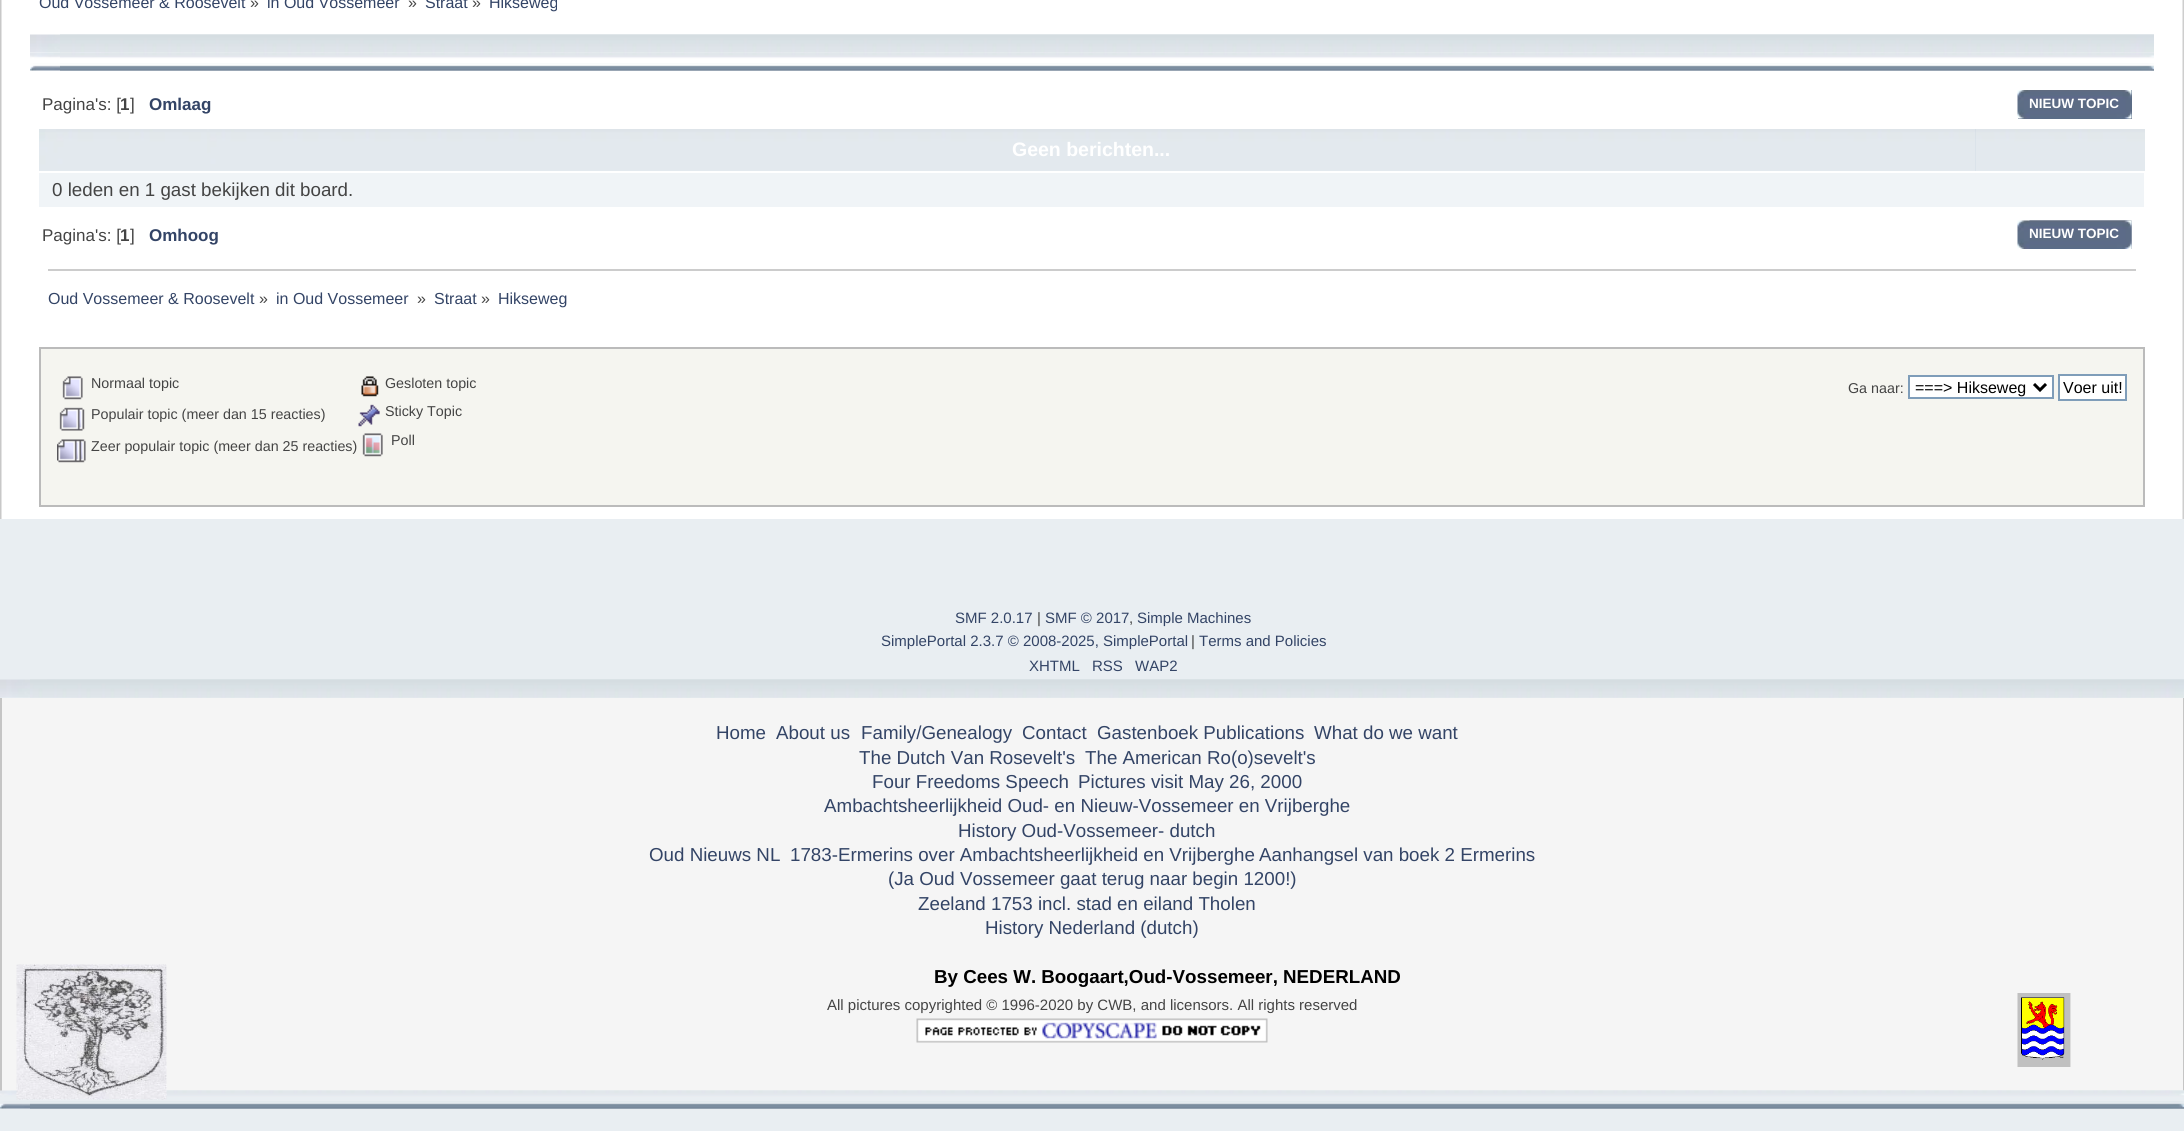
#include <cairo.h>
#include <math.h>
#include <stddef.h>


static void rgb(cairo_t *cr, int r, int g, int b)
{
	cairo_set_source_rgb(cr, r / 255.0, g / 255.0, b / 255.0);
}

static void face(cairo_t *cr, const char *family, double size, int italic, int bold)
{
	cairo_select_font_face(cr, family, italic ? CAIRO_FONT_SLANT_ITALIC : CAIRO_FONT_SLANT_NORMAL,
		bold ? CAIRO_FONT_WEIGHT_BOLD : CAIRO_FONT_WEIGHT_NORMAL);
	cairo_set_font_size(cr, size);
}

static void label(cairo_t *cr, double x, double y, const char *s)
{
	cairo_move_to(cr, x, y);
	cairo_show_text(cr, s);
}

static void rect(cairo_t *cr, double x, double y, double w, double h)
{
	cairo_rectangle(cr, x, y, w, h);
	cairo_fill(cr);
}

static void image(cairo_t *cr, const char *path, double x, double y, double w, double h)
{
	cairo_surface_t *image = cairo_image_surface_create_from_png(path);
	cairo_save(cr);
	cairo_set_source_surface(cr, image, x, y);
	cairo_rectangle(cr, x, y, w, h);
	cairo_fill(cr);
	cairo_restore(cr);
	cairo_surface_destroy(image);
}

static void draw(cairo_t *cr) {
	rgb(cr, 233, 238, 242);
	cairo_paint(cr);
	rgb(cr, 255, 255, 255);
	rect(cr, 2, 0, 2180, 519);
	image(cr, "image0.png", 0, 0, 2, 519);
	image(cr, "image1.png", 2182, 0, 2, 519);
	face(cr, "Liberation Sans", 16, 0, 0);
	rgb(cr, 51, 68, 102);
	label(cr, 39, 8, "Oud Vossemeer & Roosevelt");
	rgb(cr, 68, 68, 68);
	label(cr, 250, 8, "»");
	rgb(cr, 51, 68, 102);
	label(cr, 267, 8, "in Oud Vossemeer");
	rgb(cr, 68, 68, 68);
	label(cr, 408, 8, "»");
	rgb(cr, 51, 68, 102);
	label(cr, 425, 8, "Straat");
	rgb(cr, 68, 68, 68);
	label(cr, 472, 8, "»");
	rgb(cr, 51, 68, 102);
	label(cr, 489, 8, "Hikseweg");
	image(cr, "image2.png", 30, 34, 2124, 19);
	image(cr, "image3.png", 60, 34, 2094, 19);
	image(cr, "image4.png", 30, 52, 2124, 19);
	image(cr, "image5.png", 60, 53, 2094, 18);
	face(cr, "Liberation Sans", 17, 0, 0);
	rgb(cr, 68, 68, 68);
	label(cr, 42, 110, "Pagina's: [");
	face(cr, "Liberation Sans", 17, 0, 1);
	label(cr, 120, 110, "1");
	face(cr, "Liberation Sans", 17, 0, 0);
	label(cr, 130, 110, "]");
	face(cr, "Liberation Sans", 17, 0, 1);
	rgb(cr, 51, 68, 102);
	label(cr, 149, 110, "Omlaag");
	rgb(cr, 90, 108, 133);
	rect(cr, 2018, 90, 114, 29);
	image(cr, "image6.png", 2017, 90, 114, 29);
	image(cr, "image7.png", 2030, 90, 102, 29);
	face(cr, "Liberation Sans", 13.5, 0, 1);
	rgb(cr, 255, 255, 255);
	label(cr, 2029, 108, "NIEUW TOPIC");
	image(cr, "image8.png", 39, 129, 168, 42);
	image(cr, "image9.png", 207, 129, 1769, 42);
	face(cr, "Liberation Sans", 19.5, 0, 1);
	label(cr, 1012, 156, "Geen berichten...");
	image(cr, "image10.png", 1975, 129, 170, 42);
	rgb(cr, 240, 244, 247);
	rect(cr, 39, 173, 2105, 34);
	face(cr, "Liberation Sans", 18.75, 0, 0);
	rgb(cr, 68, 68, 68);
	label(cr, 52, 196, "0 leden en 1 gast bekijken dit board.");
	face(cr, "Liberation Sans", 17, 0, 0);
	label(cr, 42, 241, "Pagina's: [");
	face(cr, "Liberation Sans", 17, 0, 1);
	label(cr, 120, 241, "1");
	face(cr, "Liberation Sans", 17, 0, 0);
	label(cr, 130, 241, "]");
	face(cr, "Liberation Sans", 17, 0, 1);
	rgb(cr, 51, 68, 102);
	label(cr, 149, 241, "Omhoog");
	image(cr, "image11.png", 2017, 220, 115, 29);
	image(cr, "image12.png", 2029, 220, 103, 29);
	face(cr, "Liberation Sans", 13.5, 0, 1);
	rgb(cr, 255, 255, 255);
	label(cr, 2029, 238, "NIEUW TOPIC");
	rgb(cr, 204, 204, 204);
	rect(cr, 48, 269, 2088, 2);
	face(cr, "Liberation Sans", 16, 0, 0);
	rgb(cr, 51, 68, 102);
	label(cr, 48, 304, "Oud Vossemeer & Roosevelt");
	rgb(cr, 68, 68, 68);
	label(cr, 259, 304, "»");
	rgb(cr, 51, 68, 102);
	label(cr, 276, 304, "in Oud Vossemeer");
	rgb(cr, 68, 68, 68);
	label(cr, 417, 304, "»");
	rgb(cr, 51, 68, 102);
	label(cr, 434, 304, "Straat");
	rgb(cr, 68, 68, 68);
	label(cr, 481, 304, "»");
	rgb(cr, 51, 68, 102);
	label(cr, 498, 304, "Hikseweg");
	rgb(cr, 245, 245, 240);
	cairo_rectangle(cr, 40, 348, 2104, 158);
	cairo_fill_preserve(cr);
	rgb(cr, 187, 187, 187);
	cairo_stroke(cr);
	image(cr, "image13.png", 62, 376, 21, 24);
	face(cr, "Liberation Sans", 14.3, 0, 0);
	rgb(cr, 68, 68, 68);
	label(cr, 91, 388, "Normaal topic");
	image(cr, "image14.png", 59, 407, 26, 24);
	label(cr, 91, 419, "Populair topic (meer dan 15 reacties)");
	image(cr, "image15.png", 57, 439, 29, 24);
	label(cr, 91, 451, "Zeer populair topic (meer dan 25 reacties)");
	image(cr, "image16.png", 361, 376, 18, 21);
	label(cr, 385, 388, "Gesloten topic");
	image(cr, "image17.png", 358, 404, 22, 23);
	label(cr, 385, 416, "Sticky Topic");
	image(cr, "image18.png", 362, 433, 21, 24);
	label(cr, 391, 445, "Poll");
	label(cr, 1848, 393, "Ga naar:");
	rgb(cr, 255, 255, 255);
	cairo_rectangle(cr, 1909, 376, 144, 22);
	cairo_fill_preserve(cr);
	rgb(cr, 127, 157, 185);
	cairo_stroke(cr);
	cairo_new_path(cr);
	cairo_move_to(cr, 2034, 384);
	cairo_line_to(cr, 2040, 390);
	cairo_line_to(cr, 2046, 384);
	rgb(cr, 0, 0, 0);
	cairo_set_line_width(cr, 3);
	cairo_stroke(cr);
	face(cr, "Liberation Sans", 16, 0, 0);
	label(cr, 1915, 393, "===> Hikseweg");
	rgb(cr, 255, 255, 255);
	cairo_rectangle(cr, 2059, 375, 67, 25);
	cairo_fill_preserve(cr);
	rgb(cr, 127, 157, 185);
	cairo_set_line_width(cr, 2);
	cairo_stroke(cr);
	rgb(cr, 0, 0, 0);
	label(cr, 2063, 393, "Voer uit!");
	face(cr, "Liberation Sans", 15, 0, 0);
	rgb(cr, 51, 68, 102);
	label(cr, 955, 623, "SMF 2.0.17");
	rgb(cr, 68, 68, 68);
	label(cr, 1037, 623, "|");
	rgb(cr, 51, 68, 102);
	label(cr, 1045, 623, "SMF © 2017");
	rgb(cr, 68, 68, 68);
	label(cr, 1129, 623, ",");
	rgb(cr, 51, 68, 102);
	label(cr, 1137, 623, "Simple Machines");
	label(cr, 881, 646, "SimplePortal 2.3.7 © 2008-2025, SimplePortal");
	rgb(cr, 68, 68, 68);
	label(cr, 1191, 646, "|");
	rgb(cr, 51, 68, 102);
	label(cr, 1199, 646, "Terms and Policies");
	label(cr, 1029, 671, "XHTML");
	label(cr, 1092, 671, "RSS");
	label(cr, 1135, 671, "WAP2");
	image(cr, "image19.png", 0, 679, 2184, 19);
	image(cr, "image20.png", 30, 679, 2154, 19);
	rgb(cr, 245, 245, 245);
	rect(cr, 2, 698, 2181, 393);
	rgb(cr, 197, 197, 197);
	rect(cr, 2183, 698, 1, 393);
	rect(cr, 0, 698, 2, 393);
	face(cr, "Liberation Sans", 18.75, 0, 0);
	rgb(cr, 51, 68, 102);
	label(cr, 716, 739, "Home");
	label(cr, 776, 739, "About us");
	label(cr, 861, 739, "Family/Genealogy");
	label(cr, 1022, 739, "Contact");
	label(cr, 1097, 739, "Gastenboek Publications");
	label(cr, 1314, 739, "What do we want");
	label(cr, 859, 764, "The Dutch Van Rosevelt's");
	label(cr, 1085, 764, "The American Ro(o)sevelt's");
	label(cr, 872, 788, "Four Freedoms Speech");
	label(cr, 1078, 788, "Pictures visit May 26, 2000");
	label(cr, 824, 812, "Ambachtsheerlijkheid Oud- en Nieuw-Vossemeer en Vrijberghe");
	label(cr, 958, 837, "History Oud-Vossemeer- dutch");
	label(cr, 649, 861, "Oud Nieuws NL");
	label(cr, 790, 861, "1783-Ermerins over Ambachtsheerlijkheid en Vrijberghe");
	label(cr, 1259, 861, "Aanhangsel van boek 2 Ermerins");
	label(cr, 888, 885, "(Ja Oud Vossemeer gaat terug naar begin 1200!)");
	label(cr, 918, 910, "Zeeland 1753 incl. stad en eiland Tholen");
	label(cr, 985, 934, "History Nederland (dutch)");
	image(cr, "image24.png", 0, 1090, 2184, 19);
	image(cr, "image25.png", 30, 1090, 2154, 19);
	image(cr, "image21.png", 16, 964, 151, 136);
	face(cr, "Liberation Sans", 18.75, 0, 1);
	rgb(cr, 0, 0, 0);
	label(cr, 934, 983, "By Cees W. Boogaart,Oud-Vossemeer, NEDERLAND");
	face(cr, "Liberation Sans", 15, 0, 0);
	rgb(cr, 68, 68, 68);
	label(cr, 827, 1010, "All pictures copyrighted © 1996-2020 by CWB, and licensors. All rights reserved");
	image(cr, "image22.png", 916, 1018, 352, 25);
	image(cr, "image23.png", 2017, 993, 54, 74);
}

int main(void) {
	cairo_surface_t *surface = cairo_image_surface_create(CAIRO_FORMAT_RGB24, 2184, 1131);
	cairo_t *cr = cairo_create(surface);
	cairo_font_options_t *options = cairo_font_options_create();
	cairo_font_options_set_hint_metrics(options, CAIRO_HINT_METRICS_OFF);
	cairo_font_options_set_hint_style(options, CAIRO_HINT_STYLE_NONE);
	cairo_set_font_options(cr, options);
	cairo_set_miter_limit(cr, 4);
	draw(cr);
	cairo_surface_write_to_png(surface, "render.png");
	cairo_font_options_destroy(options);
	cairo_destroy(cr);
	cairo_surface_destroy(surface);
	return 0;
}
